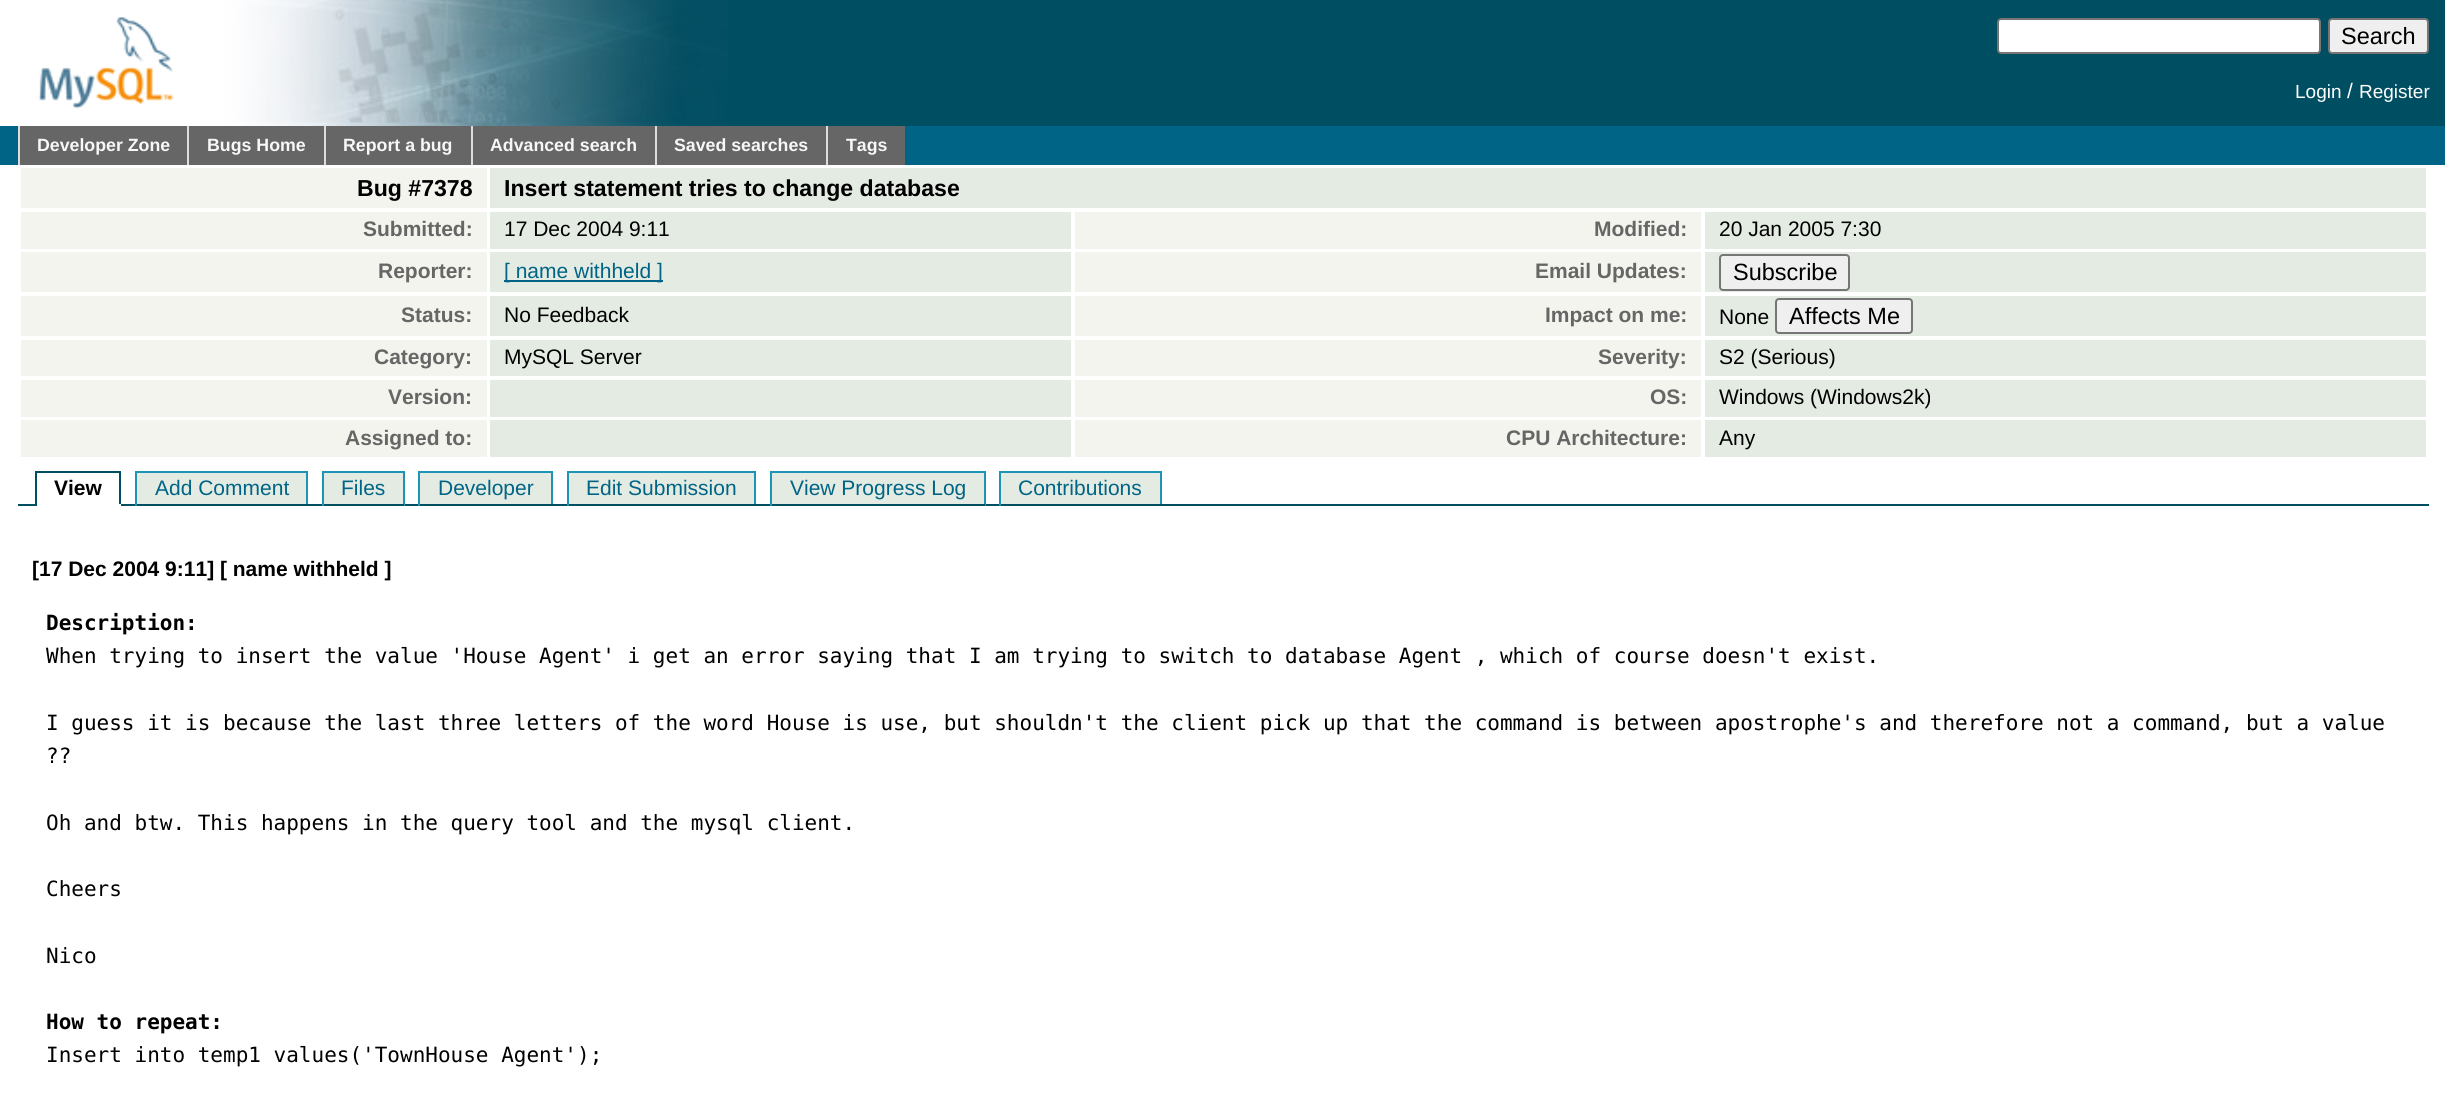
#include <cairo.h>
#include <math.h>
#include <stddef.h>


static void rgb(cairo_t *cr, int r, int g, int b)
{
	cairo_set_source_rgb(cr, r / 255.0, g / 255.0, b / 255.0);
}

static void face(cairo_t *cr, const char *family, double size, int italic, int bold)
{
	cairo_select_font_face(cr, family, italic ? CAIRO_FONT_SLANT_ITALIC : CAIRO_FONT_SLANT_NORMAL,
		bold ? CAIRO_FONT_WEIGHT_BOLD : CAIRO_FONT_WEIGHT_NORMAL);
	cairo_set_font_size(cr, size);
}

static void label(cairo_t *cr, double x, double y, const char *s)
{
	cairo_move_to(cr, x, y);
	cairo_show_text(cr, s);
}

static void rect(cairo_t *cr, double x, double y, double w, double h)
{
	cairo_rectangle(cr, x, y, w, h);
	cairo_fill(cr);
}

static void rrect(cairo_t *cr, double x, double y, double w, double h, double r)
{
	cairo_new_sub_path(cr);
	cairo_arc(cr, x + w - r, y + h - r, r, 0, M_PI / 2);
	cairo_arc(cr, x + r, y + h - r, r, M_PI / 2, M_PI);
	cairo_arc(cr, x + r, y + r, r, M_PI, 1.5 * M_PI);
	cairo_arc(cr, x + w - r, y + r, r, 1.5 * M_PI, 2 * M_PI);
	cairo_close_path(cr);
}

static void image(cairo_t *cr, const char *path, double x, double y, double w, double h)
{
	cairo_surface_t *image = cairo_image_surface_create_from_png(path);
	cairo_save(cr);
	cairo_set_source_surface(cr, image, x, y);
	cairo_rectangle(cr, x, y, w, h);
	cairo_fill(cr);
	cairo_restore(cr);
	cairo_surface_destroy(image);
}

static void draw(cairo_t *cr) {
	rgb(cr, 255, 255, 255);
	cairo_paint(cr);
	rgb(cr, 0, 78, 97);
	rect(cr, 728, 0, 1717, 126);
	image(cr, "image0.png", 0, 0, 728, 126);
	image(cr, "image1.png", 38, 17, 136, 92);
	rgb(cr, 255, 255, 255);
	rrect(cr, 1998, 19, 322, 34, 3);
	cairo_fill_preserve(cr);
	rgb(cr, 118, 118, 118);
	cairo_stroke(cr);
	rgb(cr, 239, 239, 239);
	rrect(cr, 2329, 19, 99, 34, 3);
	cairo_fill_preserve(cr);
	rgb(cr, 118, 118, 118);
	cairo_stroke(cr);
	face(cr, "Liberation Sans", 23.5, 0, 0);
	rgb(cr, 0, 0, 0);
	label(cr, 2341, 44, "Search");
	face(cr, "Liberation Sans", 19, 0, 0);
	rgb(cr, 255, 255, 255);
	label(cr, 2295, 98, "Login");
	face(cr, "Liberation Sans", 21, 0, 0);
	label(cr, 2347, 98, "/");
	face(cr, "Liberation Sans", 19, 0, 0);
	label(cr, 2359, 98, "Register");
	rgb(cr, 0, 100, 134);
	rect(cr, 0, 126, 2445, 39);
	rgb(cr, 102, 102, 102);
	rect(cr, 20, 126, 167, 39);
	rgb(cr, 221, 221, 221);
	rect(cr, 18, 126, 2, 39);
	face(cr, "Liberation Sans", 17.75, 0, 1);
	rgb(cr, 247, 247, 247);
	label(cr, 37, 151, "Developer Zone");
	rgb(cr, 102, 102, 102);
	rect(cr, 189, 126, 135, 39);
	rgb(cr, 221, 221, 221);
	rect(cr, 187, 126, 2, 39);
	rgb(cr, 247, 247, 247);
	label(cr, 207, 151, "Bugs Home");
	rgb(cr, 102, 102, 102);
	rect(cr, 326, 126, 145, 39);
	rgb(cr, 221, 221, 221);
	rect(cr, 324, 126, 2, 39);
	rgb(cr, 247, 247, 247);
	label(cr, 343, 151, "Report a bug");
	rgb(cr, 102, 102, 102);
	rect(cr, 473, 126, 182, 39);
	rgb(cr, 221, 221, 221);
	rect(cr, 471, 126, 2, 39);
	rgb(cr, 247, 247, 247);
	label(cr, 490, 151, "Advanced search");
	rgb(cr, 102, 102, 102);
	rect(cr, 657, 126, 169, 39);
	rgb(cr, 221, 221, 221);
	rect(cr, 655, 126, 2, 39);
	rgb(cr, 247, 247, 247);
	label(cr, 674, 151, "Saved searches");
	rgb(cr, 102, 102, 102);
	rect(cr, 828, 126, 77, 39);
	rgb(cr, 221, 221, 221);
	rect(cr, 826, 126, 2, 39);
	rgb(cr, 247, 247, 247);
	label(cr, 846, 151, "Tags");
	rgb(cr, 244, 244, 238);
	rect(cr, 21, 168, 466, 40);
	face(cr, "Liberation Sans", 23.1, 0, 1);
	rgb(cr, 0, 0, 0);
	label(cr, 357, 196, "Bug #7378");
	rgb(cr, 227, 235, 226);
	rect(cr, 490, 168, 1936, 40);
	rgb(cr, 0, 0, 0);
	label(cr, 504, 196, "Insert statement tries to change database");
	rgb(cr, 244, 244, 238);
	rect(cr, 21, 212, 466, 37);
	face(cr, "Liberation Sans", 21, 0, 1);
	rgb(cr, 102, 102, 102);
	label(cr, 363, 236, "Submitted:");
	rgb(cr, 227, 235, 226);
	rect(cr, 490, 212, 581, 37);
	face(cr, "Liberation Sans", 21, 0, 0);
	rgb(cr, 0, 0, 0);
	label(cr, 504, 236, "17 Dec 2004 9:11");
	rgb(cr, 244, 244, 238);
	rect(cr, 1075, 212, 626, 37);
	face(cr, "Liberation Sans", 21, 0, 1);
	rgb(cr, 102, 102, 102);
	label(cr, 1594, 236, "Modified:");
	rgb(cr, 227, 235, 226);
	rect(cr, 1705, 212, 721, 37);
	face(cr, "Liberation Sans", 21, 0, 0);
	rgb(cr, 0, 0, 0);
	label(cr, 1719, 236, "20 Jan 2005 7:30");
	rgb(cr, 244, 244, 238);
	rect(cr, 21, 252, 466, 40);
	face(cr, "Liberation Sans", 21, 0, 1);
	rgb(cr, 102, 102, 102);
	label(cr, 378, 278, "Reporter:");
	rgb(cr, 227, 235, 226);
	rect(cr, 490, 252, 581, 40);
	rgb(cr, 0, 100, 134);
	rect(cr, 504, 280, 159, 2);
	face(cr, "Liberation Sans", 21, 0, 0);
	label(cr, 504, 278, "[ name withheld ]");
	rgb(cr, 244, 244, 238);
	rect(cr, 1075, 252, 626, 40);
	face(cr, "Liberation Sans", 21, 0, 1);
	rgb(cr, 102, 102, 102);
	label(cr, 1535, 278, "Email Updates:");
	rgb(cr, 227, 235, 226);
	rect(cr, 1705, 252, 721, 40);
	rgb(cr, 239, 239, 239);
	rrect(cr, 1720, 255, 129, 35, 3);
	cairo_fill_preserve(cr);
	rgb(cr, 118, 118, 118);
	cairo_stroke(cr);
	face(cr, "Liberation Sans", 23.5, 0, 0);
	rgb(cr, 0, 0, 0);
	label(cr, 1733, 280, "Subscribe");
	rgb(cr, 244, 244, 238);
	rect(cr, 21, 296, 466, 40);
	face(cr, "Liberation Sans", 21, 0, 1);
	rgb(cr, 102, 102, 102);
	label(cr, 401, 322, "Status:");
	rgb(cr, 227, 235, 226);
	rect(cr, 490, 296, 581, 40);
	face(cr, "Liberation Sans", 21, 0, 0);
	rgb(cr, 0, 0, 0);
	label(cr, 504, 322, "No Feedback");
	rgb(cr, 244, 244, 238);
	rect(cr, 1075, 296, 626, 40);
	face(cr, "Liberation Sans", 21, 0, 1);
	rgb(cr, 102, 102, 102);
	label(cr, 1545, 322, "Impact on me:");
	rgb(cr, 227, 235, 226);
	rect(cr, 1705, 296, 721, 40);
	face(cr, "Liberation Sans", 21, 0, 0);
	rgb(cr, 0, 0, 0);
	label(cr, 1719, 324, "None");
	rgb(cr, 239, 239, 239);
	rrect(cr, 1776, 299, 136, 34, 3);
	cairo_fill_preserve(cr);
	rgb(cr, 118, 118, 118);
	cairo_stroke(cr);
	face(cr, "Liberation Sans", 23.5, 0, 0);
	rgb(cr, 0, 0, 0);
	label(cr, 1789, 324, "Affects Me");
	rgb(cr, 244, 244, 238);
	rect(cr, 21, 340, 466, 36);
	face(cr, "Liberation Sans", 21, 0, 1);
	rgb(cr, 102, 102, 102);
	label(cr, 374, 364, "Category:");
	rgb(cr, 227, 235, 226);
	rect(cr, 490, 340, 581, 36);
	face(cr, "Liberation Sans", 21, 0, 0);
	rgb(cr, 0, 0, 0);
	label(cr, 504, 364, "MySQL Server");
	rgb(cr, 244, 244, 238);
	rect(cr, 1075, 340, 626, 36);
	face(cr, "Liberation Sans", 21, 0, 1);
	rgb(cr, 102, 102, 102);
	label(cr, 1598, 364, "Severity:");
	rgb(cr, 227, 235, 226);
	rect(cr, 1705, 340, 721, 36);
	face(cr, "Liberation Sans", 21, 0, 0);
	rgb(cr, 0, 0, 0);
	label(cr, 1719, 364, "S2 (Serious)");
	rgb(cr, 244, 244, 238);
	rect(cr, 21, 380, 466, 37);
	face(cr, "Liberation Sans", 21, 0, 1);
	rgb(cr, 102, 102, 102);
	label(cr, 388, 404, "Version:");
	rgb(cr, 227, 235, 226);
	rect(cr, 490, 380, 581, 37);
	rgb(cr, 244, 244, 238);
	rect(cr, 1075, 380, 626, 37);
	rgb(cr, 102, 102, 102);
	label(cr, 1650, 404, "OS:");
	rgb(cr, 227, 235, 226);
	rect(cr, 1705, 380, 721, 37);
	face(cr, "Liberation Sans", 21, 0, 0);
	rgb(cr, 0, 0, 0);
	label(cr, 1719, 404, "Windows (Windows2k)");
	rgb(cr, 244, 244, 238);
	rect(cr, 21, 420, 466, 37);
	face(cr, "Liberation Sans", 21, 0, 1);
	rgb(cr, 102, 102, 102);
	label(cr, 345, 445, "Assigned to:");
	rgb(cr, 227, 235, 226);
	rect(cr, 490, 420, 581, 37);
	rgb(cr, 244, 244, 238);
	rect(cr, 1075, 420, 626, 37);
	rgb(cr, 102, 102, 102);
	label(cr, 1506, 445, "CPU Architecture:");
	rgb(cr, 227, 235, 226);
	rect(cr, 1705, 420, 721, 37);
	face(cr, "Liberation Sans", 21, 0, 0);
	rgb(cr, 0, 0, 0);
	label(cr, 1719, 445, "Any");
	rgb(cr, 0, 78, 97);
	rect(cr, 18, 504, 2411, 2);
	rect(cr, 35, 471, 86, 2);
	rect(cr, 119, 471, 2, 35);
	rgb(cr, 255, 255, 255);
	rect(cr, 35, 504, 86, 2);
	rgb(cr, 0, 78, 97);
	rect(cr, 35, 471, 2, 35);
	face(cr, "Liberation Sans", 21, 0, 1);
	rgb(cr, 0, 0, 0);
	label(cr, 54, 495, "View");
	rgb(cr, 227, 235, 226);
	rect(cr, 137, 473, 169, 31);
	rgb(cr, 29, 147, 182);
	rect(cr, 135, 471, 173, 2);
	rect(cr, 306, 471, 2, 35);
	rgb(cr, 0, 78, 97);
	rect(cr, 306, 504, 2, 2);
	rgb(cr, 29, 147, 182);
	rect(cr, 135, 471, 2, 35);
	face(cr, "Liberation Sans", 21, 0, 0);
	rgb(cr, 0, 100, 134);
	label(cr, 155, 495, "Add Comment");
	rgb(cr, 227, 235, 226);
	rect(cr, 324, 473, 79, 31);
	rgb(cr, 29, 147, 182);
	rect(cr, 322, 471, 82, 2);
	rect(cr, 403, 471, 2, 35);
	rgb(cr, 0, 78, 97);
	rect(cr, 403, 504, 1, 2);
	rgb(cr, 29, 147, 182);
	rect(cr, 322, 471, 2, 35);
	rgb(cr, 0, 100, 134);
	label(cr, 341, 495, "Files");
	rgb(cr, 227, 235, 226);
	rect(cr, 420, 473, 131, 31);
	rgb(cr, 29, 147, 182);
	rect(cr, 418, 471, 135, 2);
	rect(cr, 551, 471, 2, 35);
	rgb(cr, 0, 78, 97);
	rect(cr, 551, 504, 2, 2);
	rgb(cr, 29, 147, 182);
	rect(cr, 418, 471, 2, 35);
	rgb(cr, 0, 100, 134);
	label(cr, 438, 495, "Developer");
	rgb(cr, 227, 235, 226);
	rect(cr, 569, 473, 185, 31);
	rgb(cr, 29, 147, 182);
	rect(cr, 567, 471, 189, 2);
	rect(cr, 754, 471, 2, 35);
	rgb(cr, 0, 78, 97);
	rect(cr, 754, 504, 2, 2);
	rgb(cr, 29, 147, 182);
	rect(cr, 567, 471, 2, 35);
	rgb(cr, 0, 100, 134);
	label(cr, 586, 495, "Edit Submission");
	rgb(cr, 227, 235, 226);
	rect(cr, 772, 473, 212, 31);
	rgb(cr, 29, 147, 182);
	rect(cr, 770, 471, 215, 2);
	rect(cr, 984, 471, 2, 35);
	rgb(cr, 0, 78, 97);
	rect(cr, 984, 504, 1, 2);
	rgb(cr, 29, 147, 182);
	rect(cr, 770, 471, 2, 35);
	rgb(cr, 0, 100, 134);
	label(cr, 790, 495, "View Progress Log");
	rgb(cr, 227, 235, 226);
	rect(cr, 1001, 473, 159, 31);
	rgb(cr, 29, 147, 182);
	rect(cr, 999, 471, 163, 2);
	rect(cr, 1160, 471, 2, 35);
	rgb(cr, 0, 78, 97);
	rect(cr, 1160, 504, 2, 2);
	rgb(cr, 29, 147, 182);
	rect(cr, 999, 471, 2, 35);
	rgb(cr, 0, 100, 134);
	label(cr, 1018, 495, "Contributions");
	face(cr, "Liberation Sans", 21, 0, 1);
	rgb(cr, 0, 0, 0);
	label(cr, 32, 576, "[17 Dec 2004 9:11] [ name withheld ]");
	face(cr, "DejaVu Sans Mono", 21, 0, 1);
	label(cr, 46, 630, "Description:");
	face(cr, "DejaVu Sans Mono", 21, 0, 0);
	label(cr, 46, 663, "When trying to insert the value 'House Agent' i get an error saying that I am trying to switch to database Agent , which of course doesn't exist.");
	label(cr, 46, 730, "I guess it is because the last three letters of the word House is use, but shouldn't the client pick up that the command is between apostrophe's and therefore not a command, but a value");
	label(cr, 46, 763, "?\077");
	label(cr, 46, 830, "Oh and btw. This happens in the query tool and the mysql client.");
	label(cr, 46, 896, "Cheers");
	label(cr, 46, 963, "Nico");
	face(cr, "DejaVu Sans Mono", 21, 0, 1);
	label(cr, 46, 1029, "How to repeat:");
	face(cr, "DejaVu Sans Mono", 21, 0, 0);
	label(cr, 46, 1062, "Insert into temp1 values('TownHouse Agent');");
}

int main(void) {
	cairo_surface_t *surface = cairo_image_surface_create(CAIRO_FORMAT_RGB24, 2445, 1100);
	cairo_t *cr = cairo_create(surface);
	cairo_font_options_t *options = cairo_font_options_create();
	cairo_font_options_set_hint_metrics(options, CAIRO_HINT_METRICS_OFF);
	cairo_font_options_set_hint_style(options, CAIRO_HINT_STYLE_NONE);
	cairo_set_font_options(cr, options);
	cairo_set_miter_limit(cr, 4);
	draw(cr);
	cairo_surface_write_to_png(surface, "render.png");
	cairo_font_options_destroy(options);
	cairo_destroy(cr);
	cairo_surface_destroy(surface);
	return 0;
}
